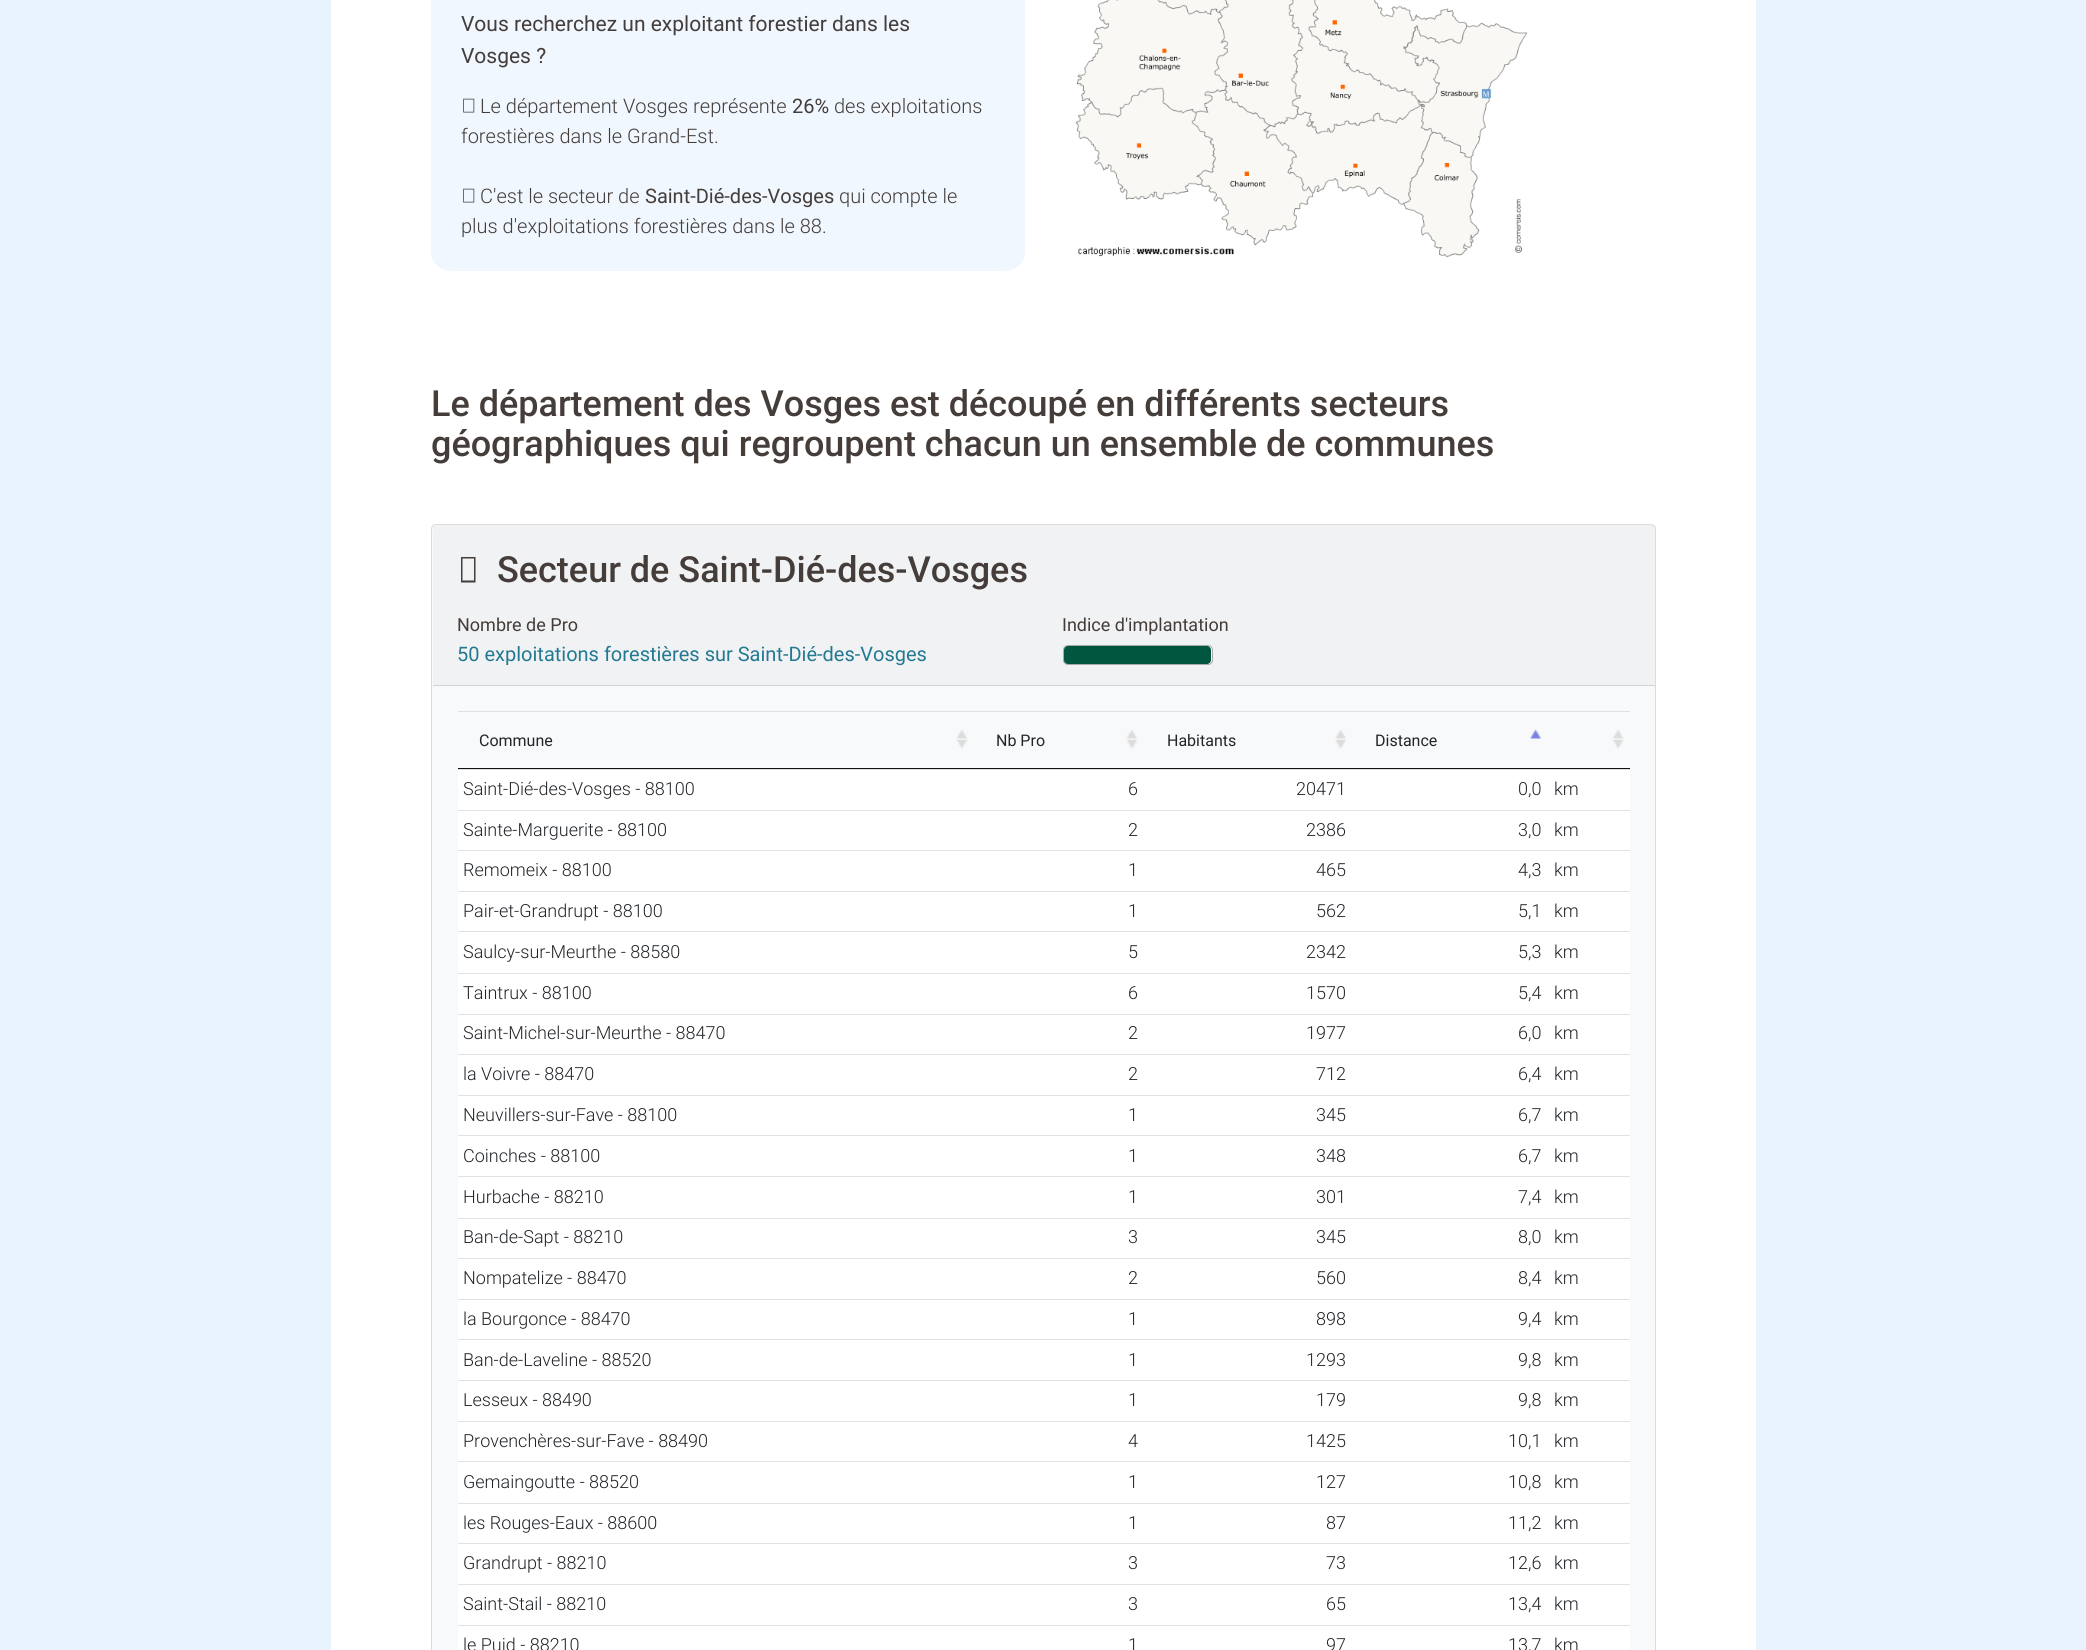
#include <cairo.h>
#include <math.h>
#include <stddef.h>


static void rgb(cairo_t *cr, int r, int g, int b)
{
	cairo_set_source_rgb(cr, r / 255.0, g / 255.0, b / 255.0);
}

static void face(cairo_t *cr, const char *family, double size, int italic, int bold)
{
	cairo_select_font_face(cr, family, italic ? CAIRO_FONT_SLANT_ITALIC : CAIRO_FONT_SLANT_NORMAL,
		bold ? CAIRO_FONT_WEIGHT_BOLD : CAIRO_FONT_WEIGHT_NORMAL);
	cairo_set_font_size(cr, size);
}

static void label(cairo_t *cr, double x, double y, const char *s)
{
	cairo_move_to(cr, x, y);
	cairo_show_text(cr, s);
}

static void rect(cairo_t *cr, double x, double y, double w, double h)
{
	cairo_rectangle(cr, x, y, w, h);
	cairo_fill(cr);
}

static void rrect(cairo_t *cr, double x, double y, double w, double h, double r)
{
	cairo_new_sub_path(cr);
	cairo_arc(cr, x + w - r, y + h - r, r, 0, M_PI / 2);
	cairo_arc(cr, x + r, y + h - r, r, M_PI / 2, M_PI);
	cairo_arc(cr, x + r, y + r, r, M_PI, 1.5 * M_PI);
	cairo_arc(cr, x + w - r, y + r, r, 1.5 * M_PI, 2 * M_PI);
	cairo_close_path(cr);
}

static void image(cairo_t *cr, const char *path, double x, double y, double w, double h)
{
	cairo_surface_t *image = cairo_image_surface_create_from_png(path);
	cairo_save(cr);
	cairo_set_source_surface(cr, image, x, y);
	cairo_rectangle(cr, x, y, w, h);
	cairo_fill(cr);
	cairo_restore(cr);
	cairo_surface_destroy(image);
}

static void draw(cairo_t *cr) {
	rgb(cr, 233, 243, 253);
	cairo_paint(cr);
	rgb(cr, 255, 255, 255);
	rect(cr, 331, 0, 1425, 1650);
	rgb(cr, 240, 247, 254);
	rrect(cr, 431, -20, 594, 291, 20);
	cairo_fill(cr);
	face(cr, "Roboto", 21, 0, 0);
	rgb(cr, 68, 61, 58);
	label(cr, 461, 31, "Vous recherchez un exploitant forestier dans les");
	label(cr, 461, 63, "Vosges ?");
	image(cr, "image0.png", 463, 98, 12, 15);
	face(cr, "Roboto Light", 20, 0, 0);
	label(cr, 480, 113, "Le département Vosges représente");
	face(cr, "Roboto", 20, 0, 0);
	label(cr, 792, 113, "26%");
	face(cr, "Roboto Light", 20, 0, 0);
	label(cr, 834, 113, "des exploitations");
	label(cr, 461, 143, "forestières dans le Grand-Est.");
	image(cr, "image0.png", 463, 188, 12, 15);
	label(cr, 480, 203, "C'est le secteur de");
	face(cr, "Roboto", 20, 0, 0);
	label(cr, 645, 203, "Saint-Dié-des-Vosges");
	face(cr, "Roboto Light", 20, 0, 0);
	label(cr, 839, 203, "qui compte le");
	label(cr, 461, 233, "plus d'exploitations forestières dans le 88.");
	image(cr, "image1.png", 1075, 0, 453, 258);
	face(cr, "Roboto Medium", 36, 0, 0);
	label(cr, 431, 416, "Le département des Vosges est découpé en différents secteurs");
	label(cr, 431, 456, "géographiques qui regroupent chacun un ensemble de communes");
	rgb(cr, 248, 249, 250);
	rrect(cr, 431, 524, 1225, 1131, 5);
	cairo_fill(cr);
	rrect(cr, 431.5, 524.5, 1224, 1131, 4.5);
	cairo_set_source_rgba(cr, 0, 0, 0, 0.12);
	cairo_set_line_width(cr, 1);
	cairo_stroke(cr);
	cairo_set_source_rgba(cr, 0, 0, 0, 0.03);
	rect(cr, 433, 525, 1222, 160);
	rgb(cr, 210, 211, 212);
	rect(cr, 433, 685, 1222, 1);
	rgb(cr, 68, 61, 58);
	cairo_new_path(cr);
	cairo_move_to(cr, 461, 582.5);
	cairo_line_to(cr, 461, 557);
	cairo_line_to(cr, 475.5, 557);
	cairo_line_to(cr, 475.5, 582.5);
	cairo_close_path(cr);
	cairo_move_to(cr, 462.5, 580.5);
	cairo_line_to(cr, 474, 580.5);
	cairo_line_to(cr, 474, 558.5);
	cairo_line_to(cr, 462.5, 558.5);
	cairo_close_path(cr);
	cairo_fill(cr);
	label(cr, 497, 582, "Secteur de Saint-Dié-des-Vosges");
	face(cr, "Roboto", 18, 0, 0);
	label(cr, 457, 631, "Nombre de Pro");
	face(cr, "Roboto", 20, 0, 0);
	rgb(cr, 35, 121, 146);
	label(cr, 457, 661, "50 exploitations forestières sur Saint-Dié-des-Vosges");
	face(cr, "Roboto", 18, 0, 0);
	rgb(cr, 68, 61, 58);
	label(cr, 1062, 631, "Indice d'implantation");
	rgb(cr, 255, 255, 255);
	rrect(cr, 1063.5, 645.5, 149, 19, 4.5);
	cairo_fill_preserve(cr);
	rgb(cr, 169, 169, 169);
	cairo_stroke(cr);
	rgb(cr, 0, 86, 62);
	rrect(cr, 1064, 646, 147, 18, 4);
	cairo_fill(cr);
	image(cr, "image2.png", 956, 730, 12, 19);
	rgb(cr, 222, 226, 230);
	rect(cr, 458, 711, 1172, 1);
	rgb(cr, 17, 17, 17);
	rect(cr, 458, 768, 1172, 1);
	face(cr, "Roboto", 16, 0, 0);
	rgb(cr, 33, 37, 41);
	label(cr, 479, 746, "Commune");
	image(cr, "image2.png", 1126, 730, 12, 19);
	label(cr, 996, 746, "Nb Pro");
	image(cr, "image3.png", 1335, 730, 11, 19);
	label(cr, 1167, 746, "Habitants");
	image(cr, "image4.png", 1530, 729, 12, 10);
	label(cr, 1375, 746, "Distance");
	image(cr, "image5.png", 1612, 730, 12, 19);
	rgb(cr, 255, 255, 255);
	rect(cr, 458, 770, 1172, 40);
	rgb(cr, 222, 226, 230);
	rect(cr, 458, 769, 1172, 1);
	face(cr, "Roboto Light", 18, 0, 0);
	rgb(cr, 33, 37, 41);
	label(cr, 463, 795, "Saint-Dié-des-Vosges - 88100");
	label(cr, 1128, 795, "6");
	label(cr, 1296, 795, "20471");
	label(cr, 1518, 795, "0,0");
	label(cr, 1554, 795, "km");
	rgb(cr, 255, 255, 255);
	rect(cr, 458, 811, 1172, 39);
	rgb(cr, 222, 226, 230);
	rect(cr, 458, 810, 1172, 1);
	rgb(cr, 33, 37, 41);
	label(cr, 463, 836, "Sainte-Marguerite - 88100");
	label(cr, 1128, 836, "2");
	label(cr, 1306, 836, "2386");
	label(cr, 1518, 836, "3,0");
	label(cr, 1554, 836, "km");
	rgb(cr, 255, 255, 255);
	rect(cr, 458, 851, 1172, 40);
	rgb(cr, 222, 226, 230);
	rect(cr, 458, 850, 1172, 1);
	rgb(cr, 33, 37, 41);
	label(cr, 463, 876, "Remomeix - 88100");
	label(cr, 1128, 876, "1");
	label(cr, 1316, 876, "465");
	label(cr, 1518, 876, "4,3");
	label(cr, 1554, 876, "km");
	rgb(cr, 255, 255, 255);
	rect(cr, 458, 892, 1172, 39);
	rgb(cr, 222, 226, 230);
	rect(cr, 458, 891, 1172, 1);
	rgb(cr, 33, 37, 41);
	label(cr, 463, 917, "Pair-et-Grandrupt - 88100");
	label(cr, 1128, 917, "1");
	label(cr, 1316, 917, "562");
	label(cr, 1518, 917, "5,1");
	label(cr, 1554, 917, "km");
	rgb(cr, 255, 255, 255);
	rect(cr, 458, 932, 1172, 41);
	rgb(cr, 222, 226, 230);
	rect(cr, 458, 931, 1172, 1);
	rgb(cr, 33, 37, 41);
	label(cr, 463, 958, "Saulcy-sur-Meurthe - 88580");
	label(cr, 1128, 958, "5");
	label(cr, 1306, 958, "2342");
	label(cr, 1518, 958, "5,3");
	label(cr, 1554, 958, "km");
	rgb(cr, 255, 255, 255);
	rect(cr, 458, 974, 1172, 40);
	rgb(cr, 222, 226, 230);
	rect(cr, 458, 973, 1172, 1);
	rgb(cr, 33, 37, 41);
	label(cr, 463, 999, "Taintrux - 88100");
	label(cr, 1128, 999, "6");
	label(cr, 1306, 999, "1570");
	label(cr, 1518, 999, "5,4");
	label(cr, 1554, 999, "km");
	rgb(cr, 255, 255, 255);
	rect(cr, 458, 1015, 1172, 39);
	rgb(cr, 222, 226, 230);
	rect(cr, 458, 1014, 1172, 1);
	rgb(cr, 33, 37, 41);
	label(cr, 463, 1039, "Saint-Michel-sur-Meurthe - 88470");
	label(cr, 1128, 1039, "2");
	label(cr, 1306, 1039, "1977");
	label(cr, 1518, 1039, "6,0");
	label(cr, 1554, 1039, "km");
	rgb(cr, 255, 255, 255);
	rect(cr, 458, 1055, 1172, 40);
	rgb(cr, 222, 226, 230);
	rect(cr, 458, 1054, 1172, 1);
	rgb(cr, 33, 37, 41);
	label(cr, 463, 1080, "la Voivre - 88470");
	label(cr, 1128, 1080, "2");
	label(cr, 1316, 1080, "712");
	label(cr, 1518, 1080, "6,4");
	label(cr, 1554, 1080, "km");
	rgb(cr, 255, 255, 255);
	rect(cr, 458, 1096, 1172, 39);
	rgb(cr, 222, 226, 230);
	rect(cr, 458, 1095, 1172, 1);
	rgb(cr, 33, 37, 41);
	label(cr, 463, 1121, "Neuvillers-sur-Fave - 88100");
	label(cr, 1128, 1121, "1");
	label(cr, 1316, 1121, "345");
	label(cr, 1518, 1121, "6,7");
	label(cr, 1554, 1121, "km");
	rgb(cr, 255, 255, 255);
	rect(cr, 458, 1136, 1172, 40);
	rgb(cr, 222, 226, 230);
	rect(cr, 458, 1135, 1172, 1);
	rgb(cr, 33, 37, 41);
	label(cr, 463, 1162, "Coinches - 88100");
	label(cr, 1128, 1162, "1");
	label(cr, 1316, 1162, "348");
	label(cr, 1518, 1162, "6,7");
	label(cr, 1554, 1162, "km");
	rgb(cr, 255, 255, 255);
	rect(cr, 458, 1177, 1172, 41);
	rgb(cr, 222, 226, 230);
	rect(cr, 458, 1176, 1172, 1);
	rgb(cr, 33, 37, 41);
	label(cr, 463, 1203, "Hurbache - 88210");
	label(cr, 1128, 1203, "1");
	label(cr, 1316, 1203, "301");
	label(cr, 1518, 1203, "7,4");
	label(cr, 1554, 1203, "km");
	rgb(cr, 255, 255, 255);
	rect(cr, 458, 1219, 1172, 39);
	rgb(cr, 222, 226, 230);
	rect(cr, 458, 1218, 1172, 1);
	rgb(cr, 33, 37, 41);
	label(cr, 463, 1243, "Ban-de-Sapt - 88210");
	label(cr, 1128, 1243, "3");
	label(cr, 1316, 1243, "345");
	label(cr, 1518, 1243, "8,0");
	label(cr, 1554, 1243, "km");
	rgb(cr, 255, 255, 255);
	rect(cr, 458, 1259, 1172, 40);
	rgb(cr, 222, 226, 230);
	rect(cr, 458, 1258, 1172, 1);
	rgb(cr, 33, 37, 41);
	label(cr, 463, 1284, "Nompatelize - 88470");
	label(cr, 1128, 1284, "2");
	label(cr, 1316, 1284, "560");
	label(cr, 1518, 1284, "8,4");
	label(cr, 1554, 1284, "km");
	rgb(cr, 255, 255, 255);
	rect(cr, 458, 1300, 1172, 39);
	rgb(cr, 222, 226, 230);
	rect(cr, 458, 1299, 1172, 1);
	rgb(cr, 33, 37, 41);
	label(cr, 463, 1325, "la Bourgonce - 88470");
	label(cr, 1128, 1325, "1");
	label(cr, 1316, 1325, "898");
	label(cr, 1518, 1325, "9,4");
	label(cr, 1554, 1325, "km");
	rgb(cr, 255, 255, 255);
	rect(cr, 458, 1340, 1172, 40);
	rgb(cr, 222, 226, 230);
	rect(cr, 458, 1339, 1172, 1);
	rgb(cr, 33, 37, 41);
	label(cr, 463, 1366, "Ban-de-Laveline - 88520");
	label(cr, 1128, 1366, "1");
	label(cr, 1306, 1366, "1293");
	label(cr, 1518, 1366, "9,8");
	label(cr, 1554, 1366, "km");
	rgb(cr, 255, 255, 255);
	rect(cr, 458, 1381, 1172, 40);
	rgb(cr, 222, 226, 230);
	rect(cr, 458, 1380, 1172, 1);
	rgb(cr, 33, 37, 41);
	label(cr, 463, 1406, "Lesseux - 88490");
	label(cr, 1128, 1406, "1");
	label(cr, 1316, 1406, "179");
	label(cr, 1518, 1406, "9,8");
	label(cr, 1554, 1406, "km");
	rgb(cr, 255, 255, 255);
	rect(cr, 458, 1422, 1172, 39);
	rgb(cr, 222, 226, 230);
	rect(cr, 458, 1421, 1172, 1);
	rgb(cr, 33, 37, 41);
	label(cr, 463, 1447, "Provenchères-sur-Fave - 88490");
	label(cr, 1128, 1447, "4");
	label(cr, 1306, 1447, "1425");
	label(cr, 1508, 1447, "10,1");
	label(cr, 1554, 1447, "km");
	rgb(cr, 255, 255, 255);
	rect(cr, 458, 1462, 1172, 41);
	rgb(cr, 222, 226, 230);
	rect(cr, 458, 1461, 1172, 1);
	rgb(cr, 33, 37, 41);
	label(cr, 463, 1488, "Gemaingoutte - 88520");
	label(cr, 1128, 1488, "1");
	label(cr, 1316, 1488, "127");
	label(cr, 1508, 1488, "10,8");
	label(cr, 1554, 1488, "km");
	rgb(cr, 255, 255, 255);
	rect(cr, 458, 1504, 1172, 39);
	rgb(cr, 222, 226, 230);
	rect(cr, 458, 1503, 1172, 1);
	rgb(cr, 33, 37, 41);
	label(cr, 463, 1529, "les Rouges-Eaux - 88600");
	label(cr, 1128, 1529, "1");
	label(cr, 1326, 1529, "87");
	label(cr, 1508, 1529, "11,2");
	label(cr, 1554, 1529, "km");
	rgb(cr, 255, 255, 255);
	rect(cr, 458, 1544, 1172, 40);
	rgb(cr, 222, 226, 230);
	rect(cr, 458, 1543, 1172, 1);
	rgb(cr, 33, 37, 41);
	label(cr, 463, 1569, "Grandrupt - 88210");
	label(cr, 1128, 1569, "3");
	label(cr, 1326, 1569, "73");
	label(cr, 1508, 1569, "12,6");
	label(cr, 1554, 1569, "km");
	rgb(cr, 255, 255, 255);
	rect(cr, 458, 1585, 1172, 40);
	rgb(cr, 222, 226, 230);
	rect(cr, 458, 1584, 1172, 1);
	rgb(cr, 33, 37, 41);
	label(cr, 463, 1610, "Saint-Stail - 88210");
	label(cr, 1128, 1610, "3");
	label(cr, 1326, 1610, "65");
	label(cr, 1508, 1610, "13,4");
	label(cr, 1554, 1610, "km");
	rgb(cr, 255, 255, 255);
	rect(cr, 458, 1626, 1172, 24);
	rgb(cr, 222, 226, 230);
	rect(cr, 458, 1625, 1172, 1);
	rgb(cr, 33, 37, 41);
	label(cr, 463, 1651, "le Puid - 88210");
	label(cr, 1128, 1651, "1");
	label(cr, 1326, 1651, "97");
	label(cr, 1508, 1651, "13,7");
	label(cr, 1554, 1651, "km");
}

int main(void) {
	cairo_surface_t *surface = cairo_image_surface_create(CAIRO_FORMAT_RGB24, 2086, 1650);
	cairo_t *cr = cairo_create(surface);
	cairo_font_options_t *options = cairo_font_options_create();
	cairo_font_options_set_hint_metrics(options, CAIRO_HINT_METRICS_OFF);
	cairo_font_options_set_hint_style(options, CAIRO_HINT_STYLE_NONE);
	cairo_set_font_options(cr, options);
	cairo_set_miter_limit(cr, 4);
	draw(cr);
	cairo_surface_write_to_png(surface, "render.png");
	cairo_font_options_destroy(options);
	cairo_destroy(cr);
	cairo_surface_destroy(surface);
	return 0;
}
